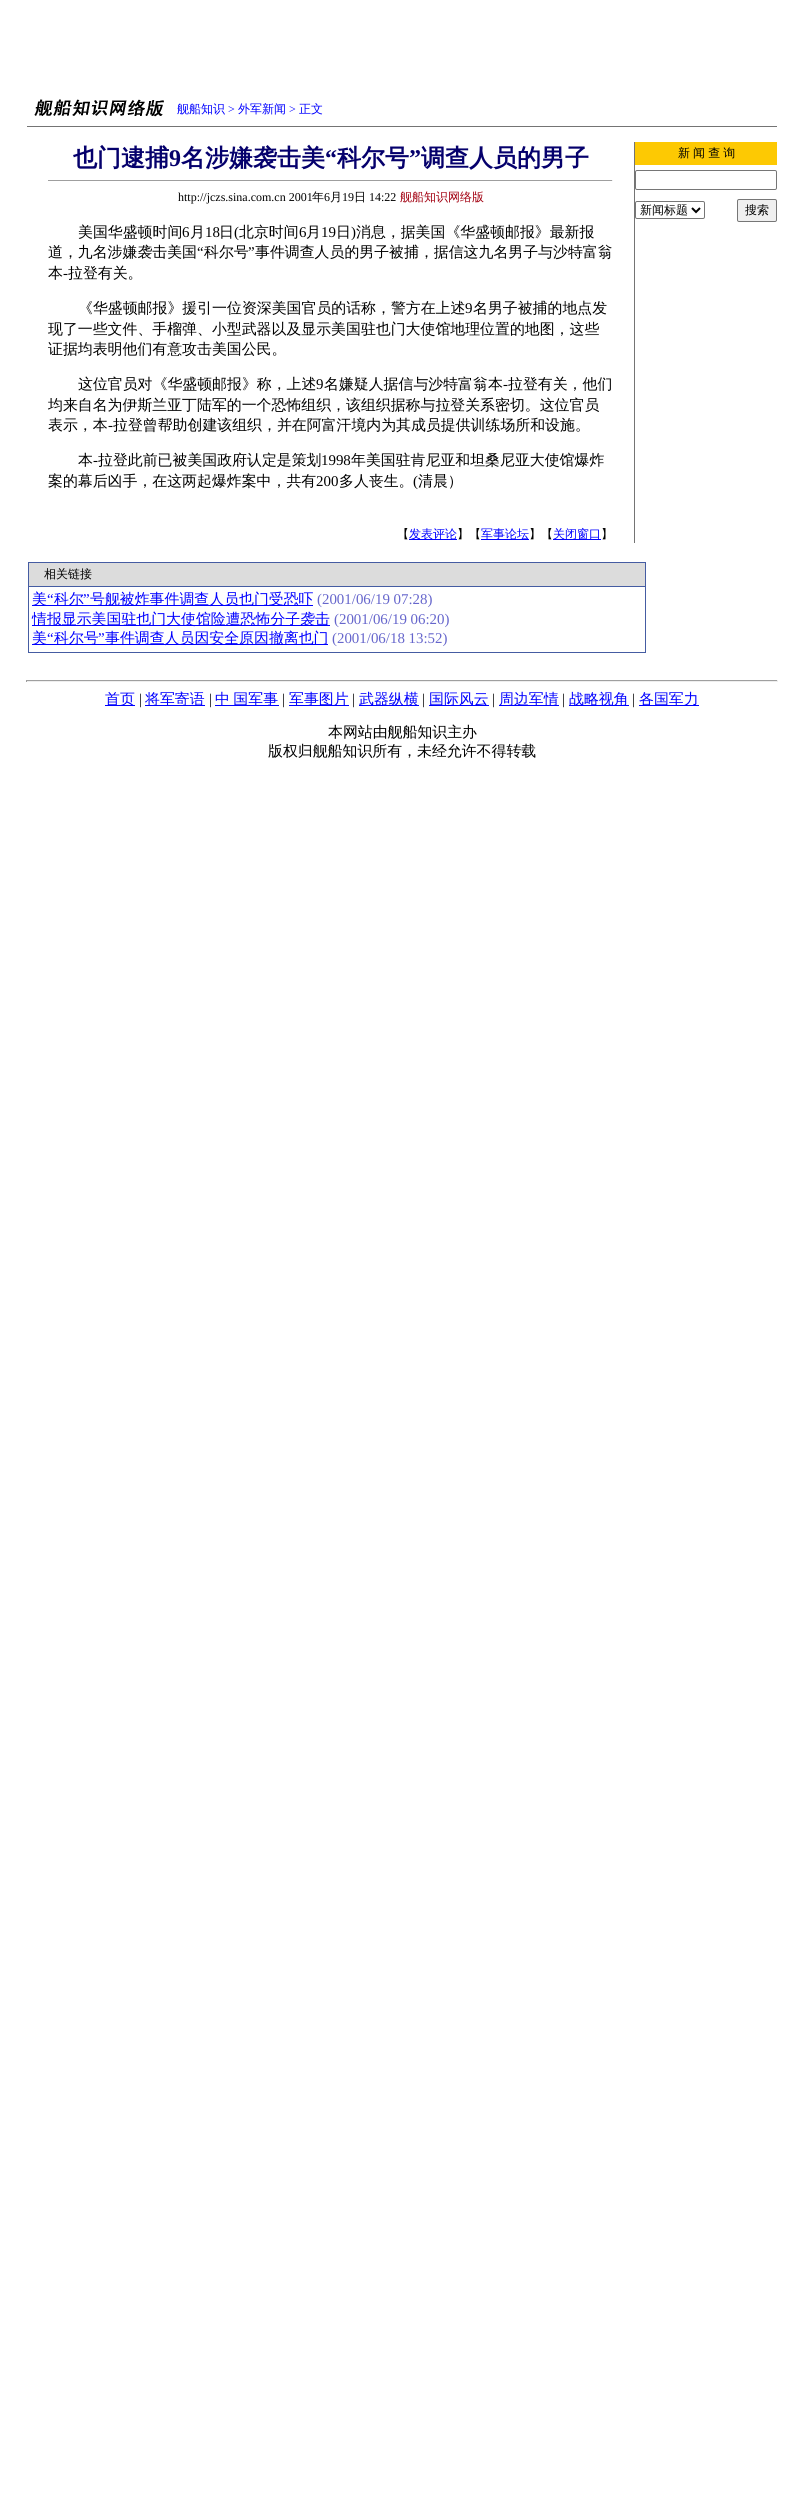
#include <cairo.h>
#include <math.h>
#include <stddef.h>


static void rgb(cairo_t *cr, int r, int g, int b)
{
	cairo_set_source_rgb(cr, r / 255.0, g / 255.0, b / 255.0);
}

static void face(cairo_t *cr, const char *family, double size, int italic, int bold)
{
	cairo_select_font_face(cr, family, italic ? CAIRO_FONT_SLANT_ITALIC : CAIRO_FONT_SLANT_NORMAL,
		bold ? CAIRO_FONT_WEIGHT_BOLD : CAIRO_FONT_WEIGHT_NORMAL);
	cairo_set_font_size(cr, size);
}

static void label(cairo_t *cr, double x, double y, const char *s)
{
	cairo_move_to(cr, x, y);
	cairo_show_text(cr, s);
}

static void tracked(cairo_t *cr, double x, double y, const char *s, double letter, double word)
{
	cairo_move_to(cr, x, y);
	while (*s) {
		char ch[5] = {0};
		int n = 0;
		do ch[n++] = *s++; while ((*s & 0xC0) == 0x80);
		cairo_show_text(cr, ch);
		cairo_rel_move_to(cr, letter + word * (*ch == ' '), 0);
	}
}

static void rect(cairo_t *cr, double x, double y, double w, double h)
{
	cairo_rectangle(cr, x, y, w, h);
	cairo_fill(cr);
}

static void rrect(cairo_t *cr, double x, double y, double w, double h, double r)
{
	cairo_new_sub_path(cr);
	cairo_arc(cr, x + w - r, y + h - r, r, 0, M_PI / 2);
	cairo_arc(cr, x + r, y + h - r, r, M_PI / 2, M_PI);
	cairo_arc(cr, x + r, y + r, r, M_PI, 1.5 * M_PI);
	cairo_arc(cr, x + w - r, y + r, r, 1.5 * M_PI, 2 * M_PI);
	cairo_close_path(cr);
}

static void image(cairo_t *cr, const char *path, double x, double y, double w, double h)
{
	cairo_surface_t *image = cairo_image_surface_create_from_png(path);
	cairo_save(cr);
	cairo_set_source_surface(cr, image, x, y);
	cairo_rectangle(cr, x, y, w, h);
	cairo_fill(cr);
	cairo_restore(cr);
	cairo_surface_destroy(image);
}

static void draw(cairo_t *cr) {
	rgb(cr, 255, 255, 255);
	cairo_paint(cr);
	image(cr, "image0.png", 34, 99, 130, 18);
	face(cr, "WenQuanYi Zen Hei Medium", 12, 0, 0);
	rgb(cr, 0, 0, 255);
	label(cr, 177, 113, "舰船知识");
	face(cr, "Liberation Serif", 12, 0, 0);
	label(cr, 228, 113, ">");
	face(cr, "WenQuanYi Zen Hei Medium", 12, 0, 0);
	label(cr, 238, 113, "外军新闻");
	face(cr, "Liberation Serif", 12, 0, 0);
	label(cr, 289, 113, ">");
	face(cr, "WenQuanYi Zen Hei Medium", 12, 0, 0);
	label(cr, 299, 113, "正文");
	rgb(cr, 116, 116, 116);
	rect(cr, 27, 126, 750, 1);
	face(cr, "WenQuanYi Zen Hei", 24, 0, 1);
	rgb(cr, 5, 0, 108);
	label(cr, 73, 166, "也门逮捕");
	face(cr, "Liberation Serif", 24, 0, 1);
	label(cr, 169, 166, "9");
	face(cr, "WenQuanYi Zen Hei", 24, 0, 1);
	label(cr, 181, 166, "名涉嫌袭击美");
	face(cr, "Liberation Serif", 24, 0, 1);
	label(cr, 325, 166, "“");
	face(cr, "WenQuanYi Zen Hei", 24, 0, 1);
	label(cr, 337, 166, "科尔号");
	face(cr, "Liberation Serif", 24, 0, 1);
	label(cr, 409, 166, "”");
	face(cr, "WenQuanYi Zen Hei", 24, 0, 1);
	label(cr, 421, 166, "调查人员的男子");
	rgb(cr, 159, 159, 159);
	rect(cr, 48, 180, 565, 1);
	rgb(cr, 238, 238, 238);
	rect(cr, 612, 180, 1, 1);
	face(cr, "Liberation Serif", 12, 0, 0);
	rgb(cr, 0, 0, 0);
	label(cr, 178, 201, "http://jczs.sina.com.cn 2001");
	face(cr, "WenQuanYi Zen Hei Medium", 12, 0, 0);
	label(cr, 312, 201, "年");
	face(cr, "Liberation Serif", 12, 0, 0);
	label(cr, 324, 201, "6");
	face(cr, "WenQuanYi Zen Hei Medium", 12, 0, 0);
	label(cr, 330, 201, "月");
	face(cr, "Liberation Serif", 12, 0, 0);
	label(cr, 342, 201, "19");
	face(cr, "WenQuanYi Zen Hei Medium", 12, 0, 0);
	label(cr, 354, 201, "日");
	face(cr, "Liberation Serif", 12, 0, 0);
	label(cr, 369, 201, "14:22");
	face(cr, "WenQuanYi Zen Hei Medium", 12, 0, 0);
	rgb(cr, 162, 0, 16);
	label(cr, 400, 201, "舰船知识网络版");
	face(cr, "WenQuanYi Zen Hei Medium", 14.9, 0, 0);
	rgb(cr, 0, 0, 0);
	label(cr, 78, 237, "美国华盛顿时间");
	face(cr, "Liberation Serif", 14.9, 0, 0);
	label(cr, 182, 237, "6");
	face(cr, "WenQuanYi Zen Hei Medium", 14.9, 0, 0);
	label(cr, 190, 237, "月");
	face(cr, "Liberation Serif", 14.9, 0, 0);
	label(cr, 205, 237, "18");
	face(cr, "WenQuanYi Zen Hei Medium", 14.9, 0, 0);
	label(cr, 219, 237, "日");
	face(cr, "Liberation Serif", 14.9, 0, 0);
	label(cr, 234, 237, "(");
	face(cr, "WenQuanYi Zen Hei Medium", 14.9, 0, 0);
	label(cr, 239, 237, "北京时间");
	face(cr, "Liberation Serif", 14.9, 0, 0);
	label(cr, 299, 237, "6");
	face(cr, "WenQuanYi Zen Hei Medium", 14.9, 0, 0);
	label(cr, 306, 237, "月");
	face(cr, "Liberation Serif", 14.9, 0, 0);
	label(cr, 321, 237, "19");
	face(cr, "WenQuanYi Zen Hei Medium", 14.9, 0, 0);
	label(cr, 336, 237, "日");
	face(cr, "Liberation Serif", 14.9, 0, 0);
	label(cr, 351, 237, ")");
	face(cr, "WenQuanYi Zen Hei Medium", 14.9, 0, 0);
	label(cr, 356, 237, "消息，据美国《华盛顿邮报》最新报");
	label(cr, 48, 257, "道，九名涉嫌袭击美国");
	face(cr, "Liberation Serif", 14.9, 0, 0);
	label(cr, 197, 257, "“");
	face(cr, "WenQuanYi Zen Hei Medium", 14.9, 0, 0);
	label(cr, 204, 257, "科尔号");
	face(cr, "Liberation Serif", 14.9, 0, 0);
	label(cr, 248, 257, "”");
	face(cr, "WenQuanYi Zen Hei Medium", 14.9, 0, 0);
	label(cr, 255, 257, "事件调查人员的男子被捕，据信这九名男子与沙特富翁");
	label(cr, 48, 278, "本");
	face(cr, "Liberation Serif", 14.9, 0, 0);
	label(cr, 63, 278, "-");
	face(cr, "WenQuanYi Zen Hei Medium", 14.9, 0, 0);
	label(cr, 68, 278, "拉登有关。");
	label(cr, 78, 313, "《华盛顿邮报》援引一位资深美国官员的话称，警方在上述");
	face(cr, "Liberation Serif", 14.9, 0, 0);
	label(cr, 465, 313, "9");
	face(cr, "WenQuanYi Zen Hei Medium", 14.9, 0, 0);
	label(cr, 473, 313, "名男子被捕的地点发");
	label(cr, 48, 334, "现了一些文件、手榴弹、小型武器以及显示美国驻也门大使馆地理位置的地图，这些");
	label(cr, 48, 354, "证据均表明他们有意攻击美国公民。");
	label(cr, 78, 389, "这位官员对《华盛顿邮报》称，上述");
	face(cr, "Liberation Serif", 14.9, 0, 0);
	label(cr, 316, 389, "9");
	face(cr, "WenQuanYi Zen Hei Medium", 14.9, 0, 0);
	label(cr, 324, 389, "名嫌疑人据信与沙特富翁本");
	face(cr, "Liberation Serif", 14.9, 0, 0);
	label(cr, 503, 389, "-");
	face(cr, "WenQuanYi Zen Hei Medium", 14.9, 0, 0);
	label(cr, 508, 389, "拉登有关，他们");
	label(cr, 48, 410, "均来自名为伊斯兰亚丁陆军的一个恐怖组织，该组织据称与拉登关系密切。这位官员");
	label(cr, 48, 430, "表示，本");
	face(cr, "Liberation Serif", 14.9, 0, 0);
	label(cr, 108, 430, "-");
	face(cr, "WenQuanYi Zen Hei Medium", 14.9, 0, 0);
	label(cr, 113, 430, "拉登曾帮助创建该组织，并在阿富汗境内为其成员提供训练场所和设施。");
	label(cr, 78, 465, "本");
	face(cr, "Liberation Serif", 14.9, 0, 0);
	label(cr, 93, 465, "-");
	face(cr, "WenQuanYi Zen Hei Medium", 14.9, 0, 0);
	label(cr, 98, 465, "拉登此前已被美国政府认定是策划");
	face(cr, "Liberation Serif", 14.9, 0, 0);
	label(cr, 321, 465, "1998");
	face(cr, "WenQuanYi Zen Hei Medium", 14.9, 0, 0);
	label(cr, 351, 465, "年美国驻肯尼亚和坦桑尼亚大使馆爆炸");
	label(cr, 48, 486, "案的幕后凶手，在这两起爆炸案中，共有");
	face(cr, "Liberation Serif", 14.9, 0, 0);
	label(cr, 316, 486, "200");
	face(cr, "WenQuanYi Zen Hei Medium", 14.9, 0, 0);
	label(cr, 339, 486, "多人丧生。");
	face(cr, "Liberation Serif", 14.9, 0, 0);
	label(cr, 413, 486, "(");
	face(cr, "WenQuanYi Zen Hei Medium", 14.9, 0, 0);
	label(cr, 418, 486, "清晨）");
	face(cr, "WenQuanYi Zen Hei Medium", 12, 0, 0);
	label(cr, 397, 538, "【");
	rgb(cr, 0, 0, 255);
	rect(cr, 409, 539, 48, 1);
	label(cr, 409, 538, "发表评论");
	rgb(cr, 0, 0, 0);
	label(cr, 457, 538, "】【");
	rgb(cr, 0, 0, 255);
	rect(cr, 481, 539, 48, 1);
	label(cr, 481, 538, "军事论坛");
	rgb(cr, 0, 0, 0);
	label(cr, 529, 538, "】【");
	rgb(cr, 0, 0, 255);
	rect(cr, 553, 539, 48, 1);
	label(cr, 553, 538, "关闭窗口");
	rgb(cr, 0, 0, 0);
	label(cr, 601, 538, "】");
	rgb(cr, 116, 116, 116);
	rect(cr, 634, 142, 1, 401);
	rgb(cr, 253, 201, 3);
	rect(cr, 635, 142, 142, 23);
	rgb(cr, 0, 0, 0);
	tracked(cr, 678, 157, "新 闻 查 询", 0, -0.5);
	rrect(cr, 635.5, 170.5, 141, 19, 1.5);
	rgb(cr, 118, 118, 118);
	cairo_set_line_width(cr, 1);
	cairo_stroke(cr);
	rrect(cr, 635.5, 201.5, 69, 17, 1.5);
	cairo_stroke(cr);
	cairo_new_path(cr);
	cairo_move_to(cr, 692, 208);
	cairo_line_to(cr, 696, 212);
	cairo_line_to(cr, 700, 208);
	rgb(cr, 0, 0, 0);
	cairo_set_line_width(cr, 2);
	cairo_stroke(cr);
	label(cr, 640, 214, "新闻标题");
	rgb(cr, 239, 239, 239);
	rrect(cr, 737.5, 199.5, 39, 22, 1.5);
	cairo_fill_preserve(cr);
	rgb(cr, 118, 118, 118);
	cairo_set_line_width(cr, 1);
	cairo_stroke(cr);
	rgb(cr, 0, 0, 0);
	label(cr, 745, 214, "搜索");
	rgb(cr, 69, 92, 162);
	rect(cr, 28, 562, 618, 91);
	rgb(cr, 220, 220, 220);
	rect(cr, 29, 563, 616, 23);
	rgb(cr, 0, 0, 0);
	label(cr, 44, 578, "相关链接");
	rgb(cr, 255, 255, 255);
	rect(cr, 29, 587, 616, 65);
	rgb(cr, 0, 0, 255);
	rect(cr, 32, 605, 281, 1);
	face(cr, "WenQuanYi Zen Hei Medium", 14.9, 0, 0);
	label(cr, 32, 604, "美");
	face(cr, "Liberation Serif", 14.9, 0, 0);
	label(cr, 47, 604, "“");
	face(cr, "WenQuanYi Zen Hei Medium", 14.9, 0, 0);
	label(cr, 54, 604, "科尔");
	face(cr, "Liberation Serif", 14.9, 0, 0);
	label(cr, 83, 604, "”");
	face(cr, "WenQuanYi Zen Hei Medium", 14.9, 0, 0);
	label(cr, 90, 604, "号舰被炸事件调查人员也门受恐吓");
	face(cr, "Liberation Serif", 14.9, 0, 0);
	rgb(cr, 102, 102, 204);
	label(cr, 317, 604, "(2001/06/19 07:28)");
	rgb(cr, 0, 0, 255);
	rect(cr, 32, 625, 298, 1);
	face(cr, "WenQuanYi Zen Hei Medium", 14.9, 0, 0);
	label(cr, 32, 624, "情报显示美国驻也门大使馆险遭恐怖分子袭击");
	face(cr, "Liberation Serif", 14.9, 0, 0);
	rgb(cr, 102, 102, 204);
	label(cr, 334, 624, "(2001/06/19 06:20)");
	rgb(cr, 0, 0, 255);
	rect(cr, 32, 644, 296, 1);
	face(cr, "WenQuanYi Zen Hei Medium", 14.9, 0, 0);
	label(cr, 32, 643, "美");
	face(cr, "Liberation Serif", 14.9, 0, 0);
	label(cr, 47, 643, "“");
	face(cr, "WenQuanYi Zen Hei Medium", 14.9, 0, 0);
	label(cr, 54, 643, "科尔号");
	face(cr, "Liberation Serif", 14.9, 0, 0);
	label(cr, 98, 643, "”");
	face(cr, "WenQuanYi Zen Hei Medium", 14.9, 0, 0);
	label(cr, 105, 643, "事件调查人员因安全原因撤离也门");
	face(cr, "Liberation Serif", 14.9, 0, 0);
	rgb(cr, 102, 102, 204);
	label(cr, 332, 643, "(2001/06/18 13:52)");
	rgb(cr, 159, 159, 159);
	rect(cr, 26, 680, 752, 1);
	rgb(cr, 238, 238, 238);
	rect(cr, 777, 680, 1, 2);
	rect(cr, 26, 681, 752, 1);
	rgb(cr, 159, 159, 159);
	rect(cr, 26, 680, 1, 2);
	rgb(cr, 0, 0, 255);
	rect(cr, 105, 705, 30, 1);
	face(cr, "WenQuanYi Zen Hei Medium", 14.9, 0, 0);
	label(cr, 105, 704, "首页");
	face(cr, "Liberation Serif", 14.9, 0, 0);
	rgb(cr, 0, 0, 0);
	label(cr, 139, 704, "|");
	rgb(cr, 0, 0, 255);
	rect(cr, 145, 705, 60, 1);
	face(cr, "WenQuanYi Zen Hei Medium", 14.9, 0, 0);
	label(cr, 145, 704, "将军寄语");
	face(cr, "Liberation Serif", 14.9, 0, 0);
	rgb(cr, 0, 0, 0);
	label(cr, 209, 704, "|");
	rgb(cr, 0, 0, 255);
	rect(cr, 215, 705, 64, 1);
	face(cr, "WenQuanYi Zen Hei Medium", 14.9, 0, 0);
	tracked(cr, 215, 704, "中 国军事", 0, -1);
	face(cr, "Liberation Serif", 14.9, 0, 0);
	rgb(cr, 0, 0, 0);
	label(cr, 282, 704, "|");
	rgb(cr, 0, 0, 255);
	rect(cr, 289, 705, 60, 1);
	face(cr, "WenQuanYi Zen Hei Medium", 14.9, 0, 0);
	label(cr, 289, 704, "军事图片");
	face(cr, "Liberation Serif", 14.9, 0, 0);
	rgb(cr, 0, 0, 0);
	label(cr, 352, 704, "|");
	rgb(cr, 0, 0, 255);
	rect(cr, 359, 705, 60, 1);
	face(cr, "WenQuanYi Zen Hei Medium", 14.9, 0, 0);
	label(cr, 359, 704, "武器纵横");
	face(cr, "Liberation Serif", 14.9, 0, 0);
	rgb(cr, 0, 0, 0);
	label(cr, 422, 704, "|");
	rgb(cr, 0, 0, 255);
	rect(cr, 429, 705, 60, 1);
	face(cr, "WenQuanYi Zen Hei Medium", 14.9, 0, 0);
	label(cr, 429, 704, "国际风云");
	face(cr, "Liberation Serif", 14.9, 0, 0);
	rgb(cr, 0, 0, 0);
	label(cr, 492, 704, "|");
	rgb(cr, 0, 0, 255);
	rect(cr, 499, 705, 60, 1);
	face(cr, "WenQuanYi Zen Hei Medium", 14.9, 0, 0);
	label(cr, 499, 704, "周边军情");
	face(cr, "Liberation Serif", 14.9, 0, 0);
	rgb(cr, 0, 0, 0);
	label(cr, 562, 704, "|");
	rgb(cr, 0, 0, 255);
	rect(cr, 569, 705, 60, 1);
	face(cr, "WenQuanYi Zen Hei Medium", 14.9, 0, 0);
	label(cr, 569, 704, "战略视角");
	face(cr, "Liberation Serif", 14.9, 0, 0);
	rgb(cr, 0, 0, 0);
	label(cr, 632, 704, "|");
	rgb(cr, 0, 0, 255);
	rect(cr, 639, 705, 60, 1);
	face(cr, "WenQuanYi Zen Hei Medium", 14.9, 0, 0);
	label(cr, 639, 704, "各国军力");
	rgb(cr, 0, 0, 0);
	label(cr, 328, 737, "本网站由舰船知识主办");
	label(cr, 268, 756, "版权归舰船知识所有，未经允许不得转载");
}

int main(void) {
	cairo_surface_t *surface = cairo_image_surface_create(CAIRO_FORMAT_RGB24, 804, 2514);
	cairo_t *cr = cairo_create(surface);
	cairo_font_options_t *options = cairo_font_options_create();
	cairo_font_options_set_hint_metrics(options, CAIRO_HINT_METRICS_OFF);
	cairo_font_options_set_hint_style(options, CAIRO_HINT_STYLE_NONE);
	cairo_set_font_options(cr, options);
	cairo_set_miter_limit(cr, 4);
	draw(cr);
	cairo_surface_write_to_png(surface, "render.png");
	cairo_font_options_destroy(options);
	cairo_destroy(cr);
	cairo_surface_destroy(surface);
	return 0;
}
